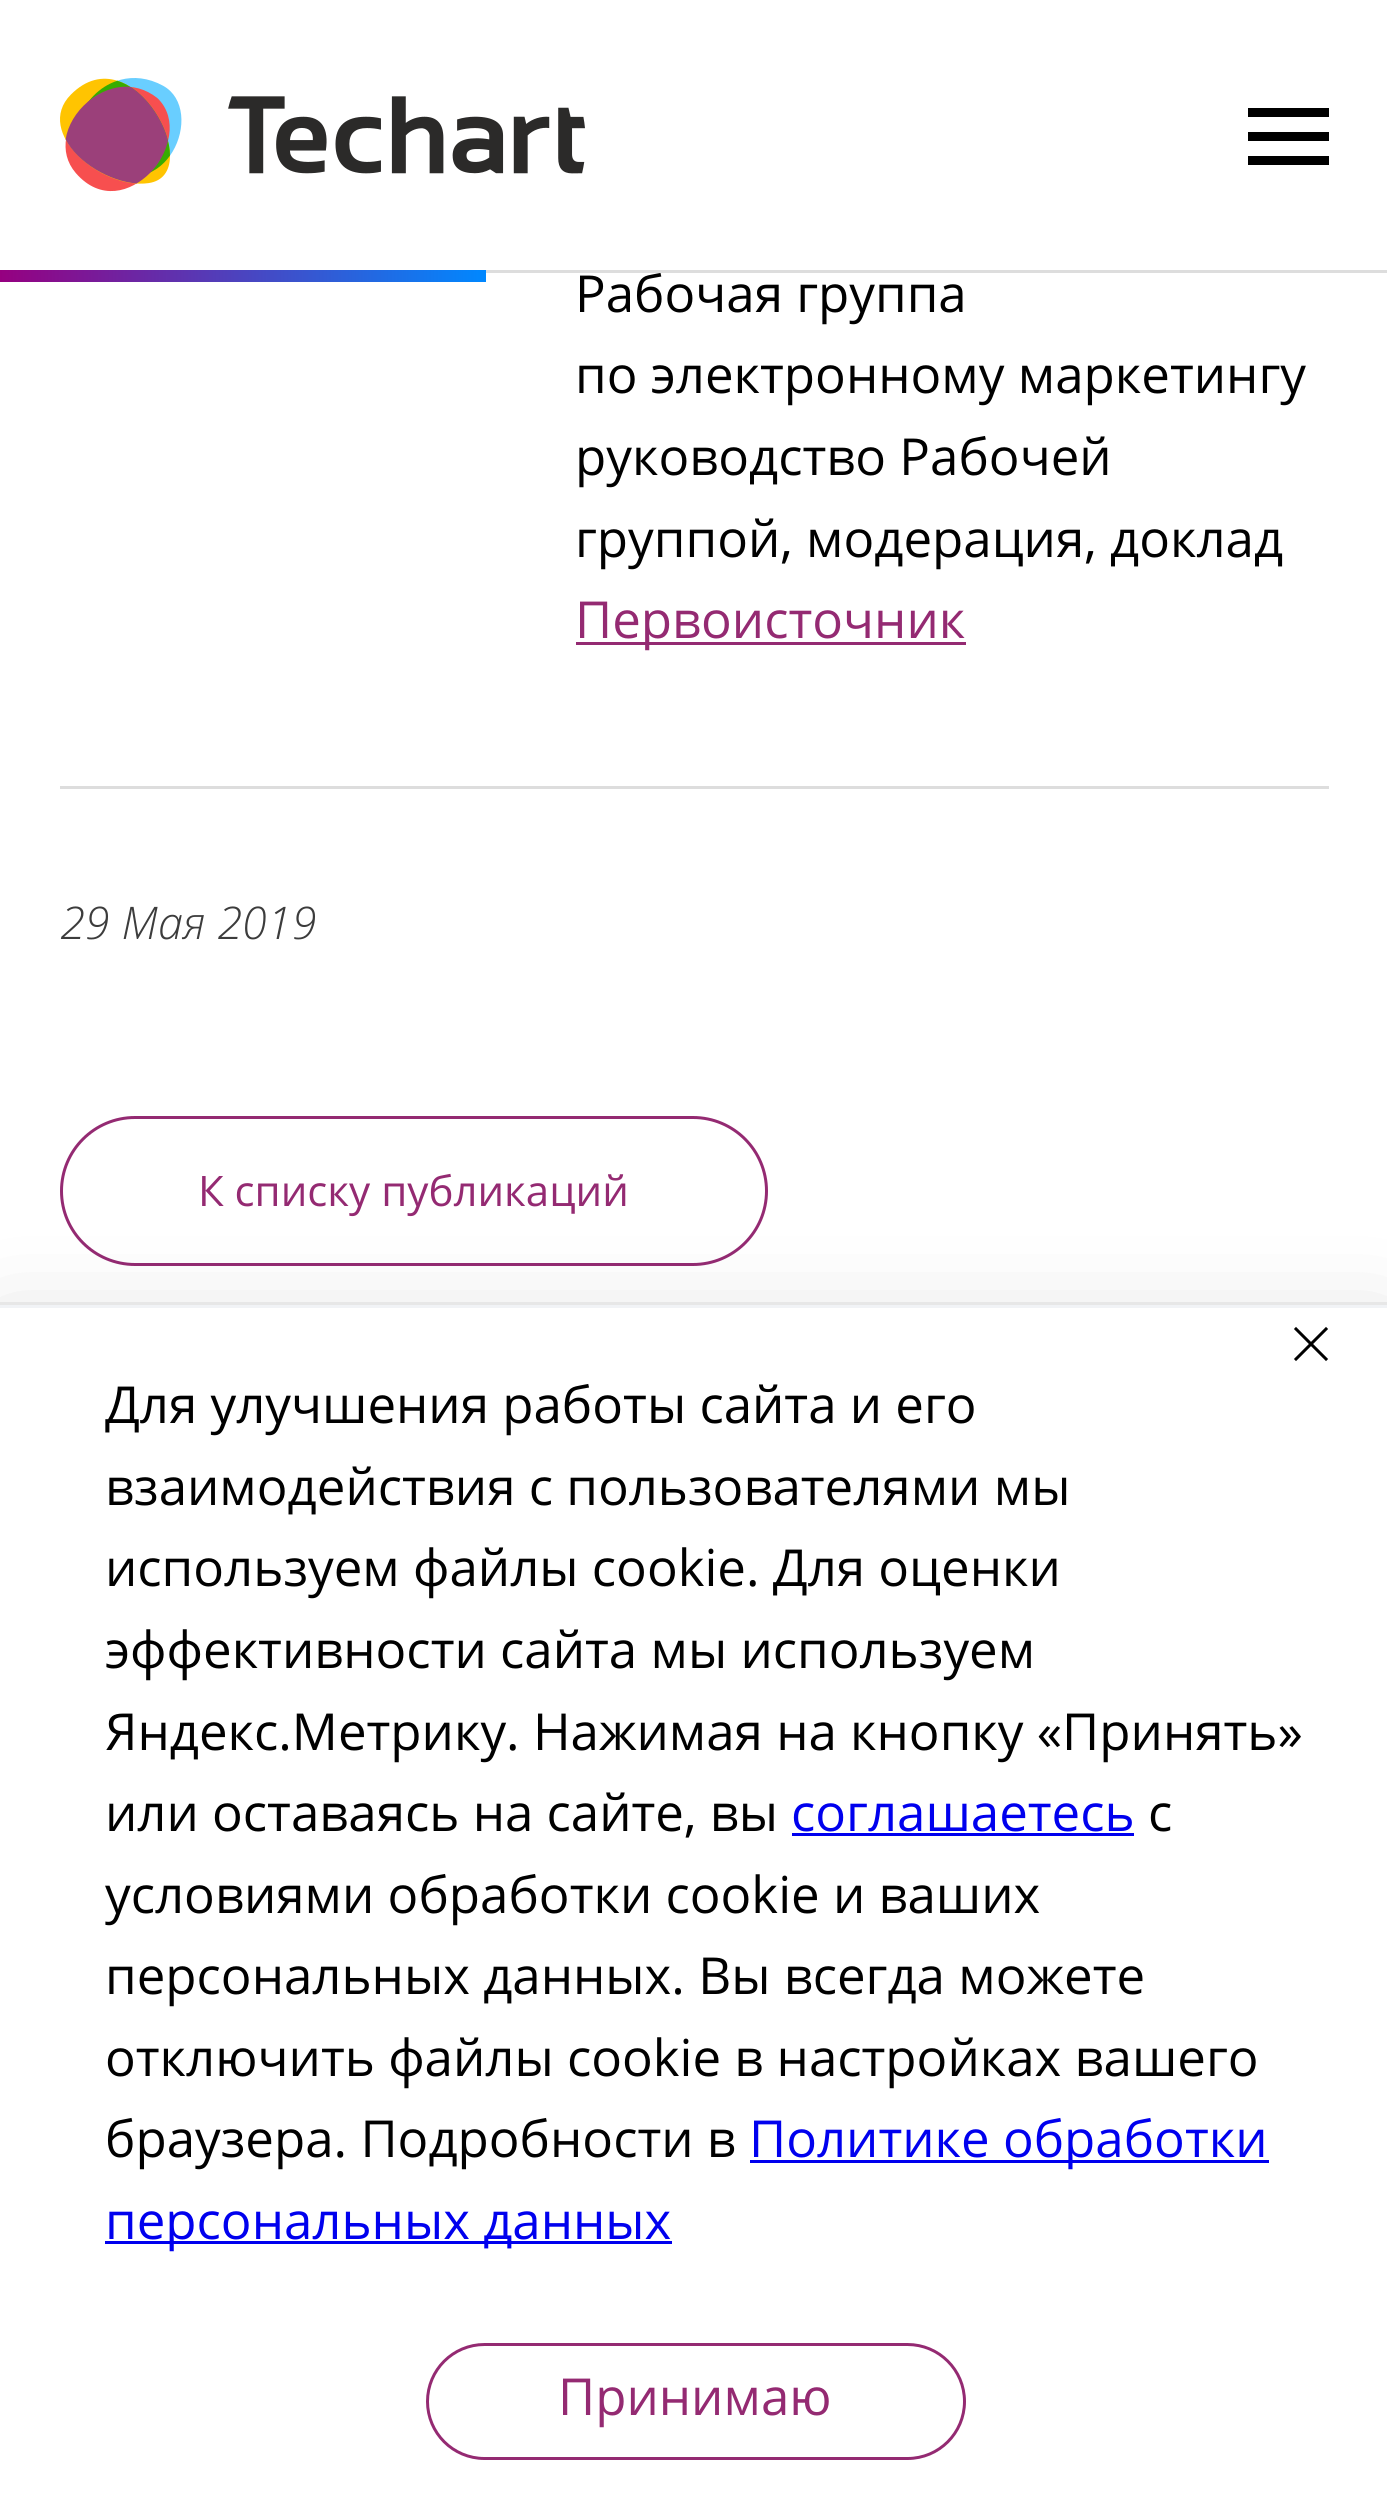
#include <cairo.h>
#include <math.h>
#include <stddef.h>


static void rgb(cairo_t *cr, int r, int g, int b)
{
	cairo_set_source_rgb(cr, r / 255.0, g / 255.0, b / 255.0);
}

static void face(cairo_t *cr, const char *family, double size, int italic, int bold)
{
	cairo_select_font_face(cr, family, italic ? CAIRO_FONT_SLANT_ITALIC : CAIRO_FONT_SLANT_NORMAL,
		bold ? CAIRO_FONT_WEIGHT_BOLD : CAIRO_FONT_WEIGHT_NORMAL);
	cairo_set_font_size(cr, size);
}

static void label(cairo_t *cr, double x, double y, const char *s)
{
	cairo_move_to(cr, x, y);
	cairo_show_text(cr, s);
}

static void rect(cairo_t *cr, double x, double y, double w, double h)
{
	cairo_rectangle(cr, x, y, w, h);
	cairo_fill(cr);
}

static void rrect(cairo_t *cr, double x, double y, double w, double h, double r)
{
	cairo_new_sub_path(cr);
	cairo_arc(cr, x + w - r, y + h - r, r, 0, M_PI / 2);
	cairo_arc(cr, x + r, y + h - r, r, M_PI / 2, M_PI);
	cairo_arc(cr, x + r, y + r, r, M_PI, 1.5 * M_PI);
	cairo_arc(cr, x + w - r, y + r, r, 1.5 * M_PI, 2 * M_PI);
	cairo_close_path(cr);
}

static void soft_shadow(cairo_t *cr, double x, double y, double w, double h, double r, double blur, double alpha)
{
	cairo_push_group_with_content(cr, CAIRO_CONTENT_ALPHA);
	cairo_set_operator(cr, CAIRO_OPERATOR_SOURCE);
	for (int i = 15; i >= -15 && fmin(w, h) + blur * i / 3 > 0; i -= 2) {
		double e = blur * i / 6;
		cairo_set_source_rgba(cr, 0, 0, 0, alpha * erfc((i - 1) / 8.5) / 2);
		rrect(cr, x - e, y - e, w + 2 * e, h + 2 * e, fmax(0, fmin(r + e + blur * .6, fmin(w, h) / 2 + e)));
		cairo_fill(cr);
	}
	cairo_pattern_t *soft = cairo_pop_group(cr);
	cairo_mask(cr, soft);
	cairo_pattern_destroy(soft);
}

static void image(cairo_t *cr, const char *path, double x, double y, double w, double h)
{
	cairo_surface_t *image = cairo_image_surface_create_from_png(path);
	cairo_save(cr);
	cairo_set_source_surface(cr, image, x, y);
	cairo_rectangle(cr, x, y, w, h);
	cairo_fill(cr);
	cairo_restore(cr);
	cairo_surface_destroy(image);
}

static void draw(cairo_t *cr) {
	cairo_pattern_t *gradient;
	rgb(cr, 255, 255, 255);
	cairo_paint(cr);
	face(cr, "Open Sans", 51, 0, 0);
	rgb(cr, 0, 0, 0);
	label(cr, 575, 312, "Рабочая группа");
	rgb(cr, 221, 221, 221);
	rect(cr, 486, 270, 901, 3);
	image(cr, "image0.png", 60, 78, 525, 114);
	rgb(cr, 0, 0, 0);
	rect(cr, 1248, 108, 81, 9);
	rect(cr, 1248, 132, 81, 9);
	rect(cr, 1248, 156, 81, 9);
	gradient = cairo_pattern_create_linear(0, 276, 486, 276);
	cairo_pattern_add_color_stop_rgba(gradient, 0, 0.588, 0, 0.502, 1);
	cairo_pattern_add_color_stop_rgba(gradient, 1, 0, 0.533, 1, 1);
	cairo_set_source(cr, gradient);
	cairo_pattern_destroy(gradient);
	rect(cr, 0, 270, 486, 12);
	rgb(cr, 221, 221, 221);
	rect(cr, 60, 786, 1269, 3);
	rgb(cr, 0, 0, 0);
	label(cr, 575, 393, "по электронному маркетингу");
	label(cr, 575, 475, "руководство Рабочей");
	label(cr, 575, 557, "группой, модерация, доклад");
	rgb(cr, 148, 42, 114);
	rect(cr, 576, 642, 390, 3);
	label(cr, 575, 638, "Первоисточник");
	face(cr, "Open Sans Light", 45, 1, 0);
	rgb(cr, 60, 60, 60);
	label(cr, 60, 939, "29 Мая 2019");
	rrect(cr, 61.5, 1117.5, 705, 147, 73.5);
	rgb(cr, 148, 42, 114);
	cairo_set_line_width(cr, 3);
	cairo_stroke(cr);
	face(cr, "Open Sans", 42, 0, 0);
	label(cr, 198, 1206, "К списку публикаций");
	cairo_rectangle(cr, -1.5, 1303.5, 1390, 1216);
	rgb(cr, 240, 240, 240);
	cairo_stroke(cr);
	rgb(cr, 0, 0, 0);
	soft_shadow(cr, 0, 1335, 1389, 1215, 0, 54, 0.16);
	rgb(cr, 255, 255, 255);
	rect(cr, 0, 1308, 1387, 1210);
	rgb(cr, 241, 243, 246);
	rect(cr, 0, 1305, 1387, 3);
	cairo_new_path(cr);
	cairo_move_to(cr, 1326, 1329);
	cairo_line_to(cr, 1296, 1359);
	cairo_move_to(cr, 1296, 1329);
	cairo_line_to(cr, 1326, 1359);
	rgb(cr, 0, 0, 0);
	cairo_set_line_cap(cr, CAIRO_LINE_CAP_SQUARE);
	cairo_set_line_join(cr, CAIRO_LINE_JOIN_ROUND);
	cairo_stroke(cr);
	face(cr, "Open Sans", 51, 0, 0);
	label(cr, 105, 1423, "Для улучшения работы сайта и его");
	label(cr, 105, 1505, "взаимодействия с пользователями мы");
	label(cr, 105, 1586, "используем файлы cookie. Для оценки");
	label(cr, 105, 1668, "эффективности сайта мы используем");
	label(cr, 105, 1750, "Яндекс.Метрику. Нажимая на кнопку «Принять»");
	label(cr, 105, 1831, "или оставаясь на сайте, вы");
	rgb(cr, 0, 0, 238);
	label(cr, 791, 1831, "соглашаетесь");
	rect(cr, 792, 1833, 342, 3);
	rgb(cr, 0, 0, 0);
	label(cr, 1148, 1831, "с");
	label(cr, 105, 1913, "условиями обработки cookie и ваших");
	label(cr, 105, 1994, "персональных данных. Вы всегда можете");
	label(cr, 105, 2076, "отключить файлы cookie в настройках вашего");
	label(cr, 105, 2157, "браузера. Подробности в");
	rgb(cr, 0, 0, 238);
	rect(cr, 750, 2160, 519, 3);
	label(cr, 749, 2157, "Политике обработки");
	rect(cr, 105, 2241, 567, 3);
	label(cr, 105, 2239, "персональных данных");
	rrect(cr, 427.5, 2344.5, 537, 114, 57);
	rgb(cr, 148, 42, 114);
	cairo_set_line_cap(cr, CAIRO_LINE_CAP_BUTT);
	cairo_set_line_join(cr, CAIRO_LINE_JOIN_MITER);
	cairo_stroke(cr);
	label(cr, 558, 2415, "Принимаю");
}

int main(void) {
	cairo_surface_t *surface = cairo_image_surface_create(CAIRO_FORMAT_RGB24, 1387, 2518);
	cairo_t *cr = cairo_create(surface);
	cairo_font_options_t *options = cairo_font_options_create();
	cairo_font_options_set_hint_metrics(options, CAIRO_HINT_METRICS_OFF);
	cairo_font_options_set_hint_style(options, CAIRO_HINT_STYLE_NONE);
	cairo_set_font_options(cr, options);
	cairo_set_miter_limit(cr, 4);
	draw(cr);
	cairo_surface_write_to_png(surface, "render.png");
	cairo_font_options_destroy(options);
	cairo_destroy(cr);
	cairo_surface_destroy(surface);
	return 0;
}
